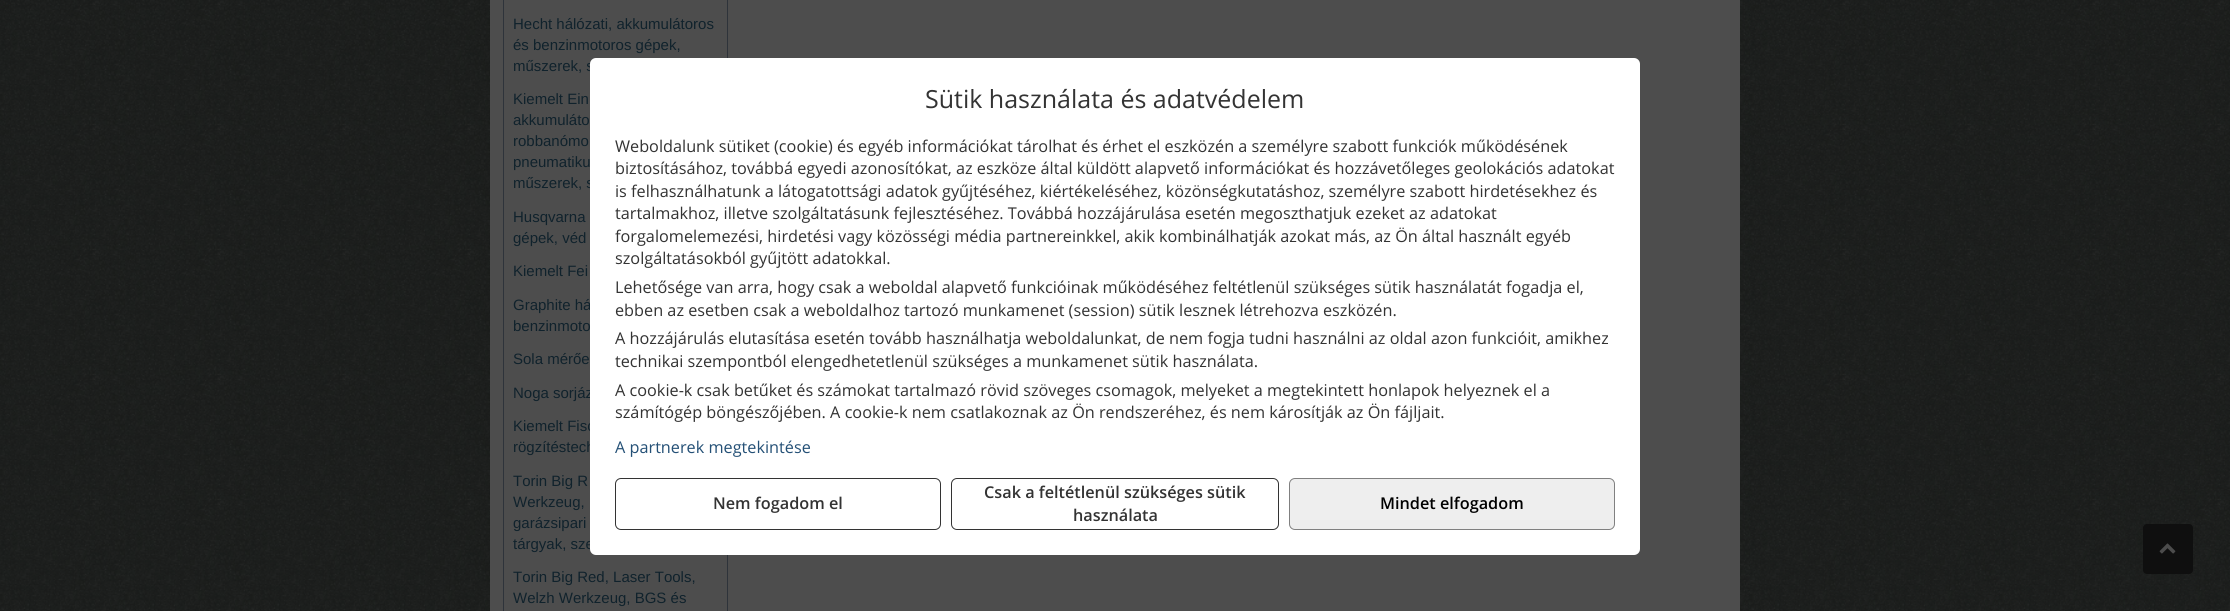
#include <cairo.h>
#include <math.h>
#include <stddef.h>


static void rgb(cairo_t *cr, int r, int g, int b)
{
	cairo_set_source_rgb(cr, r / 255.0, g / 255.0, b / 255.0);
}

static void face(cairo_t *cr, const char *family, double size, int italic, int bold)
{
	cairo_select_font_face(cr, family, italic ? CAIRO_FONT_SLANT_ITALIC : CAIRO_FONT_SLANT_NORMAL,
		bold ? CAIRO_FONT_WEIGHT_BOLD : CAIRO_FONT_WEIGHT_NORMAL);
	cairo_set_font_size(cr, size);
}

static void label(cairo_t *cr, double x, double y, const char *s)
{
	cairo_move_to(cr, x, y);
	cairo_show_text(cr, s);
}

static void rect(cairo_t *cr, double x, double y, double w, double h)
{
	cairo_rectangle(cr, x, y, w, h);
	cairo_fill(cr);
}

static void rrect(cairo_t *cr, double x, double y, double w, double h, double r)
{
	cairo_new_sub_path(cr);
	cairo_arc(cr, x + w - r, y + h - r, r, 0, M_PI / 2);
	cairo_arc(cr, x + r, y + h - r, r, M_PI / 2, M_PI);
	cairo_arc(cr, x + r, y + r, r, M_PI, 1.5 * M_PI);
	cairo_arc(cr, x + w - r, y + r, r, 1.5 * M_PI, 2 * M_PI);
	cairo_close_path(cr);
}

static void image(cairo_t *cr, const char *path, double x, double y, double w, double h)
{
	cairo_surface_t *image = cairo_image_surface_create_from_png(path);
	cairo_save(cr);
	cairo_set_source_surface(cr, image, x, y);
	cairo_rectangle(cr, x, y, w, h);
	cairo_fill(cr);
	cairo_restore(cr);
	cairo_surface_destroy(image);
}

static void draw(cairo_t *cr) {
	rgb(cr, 255, 255, 255);
	cairo_paint(cr);
	image(cr, "image0.png", 0, 0, 2230, 611);
	rgb(cr, 77, 77, 77);
	rect(cr, 490, 0, 1250, 611);
	cairo_rectangle(cr, 503.5, -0.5, 224, 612);
	rgb(cr, 46, 51, 58);
	cairo_set_line_width(cr, 1);
	cairo_stroke(cr);
	face(cr, "Liberation Sans", 15, 0, 0);
	rgb(cr, 16, 34, 44);
	label(cr, 513, 29, "Hecht hálózati, akkumulátoros");
	label(cr, 513, 50, "és benzinmotoros gépek,");
	label(cr, 513, 71, "műszerek, s");
	label(cr, 513, 104, "Kiemelt Ein");
	label(cr, 513, 125, "akkumuláto");
	label(cr, 513, 146, "robbanómo");
	label(cr, 513, 167, "pneumatiku");
	label(cr, 513, 188, "műszerek, s");
	label(cr, 513, 222, "Husqvarna");
	label(cr, 513, 243, "gépek, véd");
	label(cr, 513, 276, "Kiemelt Fei");
	label(cr, 513, 310, "Graphite há");
	label(cr, 513, 331, "benzinmoto");
	label(cr, 513, 364, "Sola mérőe");
	label(cr, 513, 398, "Noga sorjáz");
	label(cr, 513, 431, "Kiemelt Fisc");
	label(cr, 513, 452, "rögzítéstech");
	label(cr, 513, 486, "Torin Big R");
	label(cr, 513, 507, "Werkzeug,");
	label(cr, 513, 528, "garázsipari");
	label(cr, 513, 549, "tárgyak, sze");
	label(cr, 513, 582, "Torin Big Red, Laser Tools,");
	label(cr, 513, 603, "Welzh Werkzeug, BGS és");
	rgb(cr, 255, 255, 255);
	rrect(cr, 590, 58, 1050, 497, 6);
	cairo_fill(cr);
	face(cr, "Open Sans", 25, 0, 0);
	rgb(cr, 51, 51, 51);
	label(cr, 925, 108, "Sütik használata és adatvédelem");
	face(cr, "Open Sans", 16.25, 0, 0);
	label(cr, 615, 152, "Weboldalunk sütiket (cookie) és egyéb információkat tárolhat és érhet el eszközén a személyre szabott funkciók működésének");
	label(cr, 615, 174, "biztosításához, továbbá egyedi azonosítókat, az eszköze által küldött alapvető információkat és hozzávetőleges geolokációs adatokat");
	label(cr, 615, 197, "is felhasználhatunk a látogatottsági adatok gyűjtéséhez, kiértékeléséhez, közönségkutatáshoz, személyre szabott hirdetésekhez és");
	label(cr, 615, 219, "tartalmakhoz, illetve szolgáltatásunk fejlesztéséhez. Továbbá hozzájárulása esetén megoszthatjuk ezeket az adatokat");
	label(cr, 615, 242, "forgalomelemezési, hirdetési vagy közösségi média partnereinkkel, akik kombinálhatják azokat más, az Ön által használt egyéb");
	label(cr, 615, 264, "szolgáltatásokból gyűjtött adatokkal.");
	label(cr, 615, 293, "Lehetősége van arra, hogy csak a weboldal alapvető funkcióinak működéséhez feltétlenül szükséges sütik használatát fogadja el,");
	label(cr, 615, 316, "ebben az esetben csak a weboldalhoz tartozó munkamenet (session) sütik lesznek létrehozva eszközén.");
	label(cr, 615, 344, "A hozzájárulás elutasítása esetén tovább használhatja weboldalunkat, de nem fogja tudni használni az oldal azon funkcióit, amikhez");
	label(cr, 615, 367, "technikai szempontból elengedhetetlenül szükséges a munkamenet sütik használata.");
	label(cr, 615, 396, "A cookie-k csak betűket és számokat tartalmazó rövid szöveges csomagok, melyeket a megtekintett honlapok helyeznek el a");
	label(cr, 615, 418, "számítógép böngészőjében. A cookie-k nem csatlakoznak az Ön rendszeréhez, és nem károsítják az Ön fájljait.");
	rgb(cr, 36, 80, 118);
	label(cr, 615, 453, "A partnerek megtekintése");
	rrect(cr, 615.5, 478.5, 325, 51, 5.5);
	rgb(cr, 51, 51, 51);
	cairo_stroke(cr);
	face(cr, "Open Sans SemiBold", 16.25, 0, 0);
	label(cr, 713, 509, "Nem fogadom el");
	rrect(cr, 951.5, 478.5, 327, 51, 5.5);
	cairo_stroke(cr);
	label(cr, 984, 498, "Csak a feltétlenül szükséges sütik");
	label(cr, 1073, 521, "használata");
	rgb(cr, 238, 238, 238);
	rrect(cr, 1289.5, 478.5, 325, 51, 5.5);
	cairo_fill_preserve(cr);
	rgb(cr, 128, 128, 128);
	cairo_stroke(cr);
	rgb(cr, 0, 0, 0);
	label(cr, 1380, 509, "Mindet elfogadom");
	rgb(cr, 15, 15, 15);
	rrect(cr, 2143, 524, 50, 50, 4);
	cairo_fill(cr);
	image(cr, "image1.png", 2159, 543, 17, 11);
}

int main(void) {
	cairo_surface_t *surface = cairo_image_surface_create(CAIRO_FORMAT_RGB24, 2230, 611);
	cairo_t *cr = cairo_create(surface);
	cairo_font_options_t *options = cairo_font_options_create();
	cairo_font_options_set_hint_metrics(options, CAIRO_HINT_METRICS_OFF);
	cairo_font_options_set_hint_style(options, CAIRO_HINT_STYLE_NONE);
	cairo_set_font_options(cr, options);
	cairo_set_miter_limit(cr, 4);
	draw(cr);
	cairo_surface_write_to_png(surface, "render.png");
	cairo_font_options_destroy(options);
	cairo_destroy(cr);
	cairo_surface_destroy(surface);
	return 0;
}
